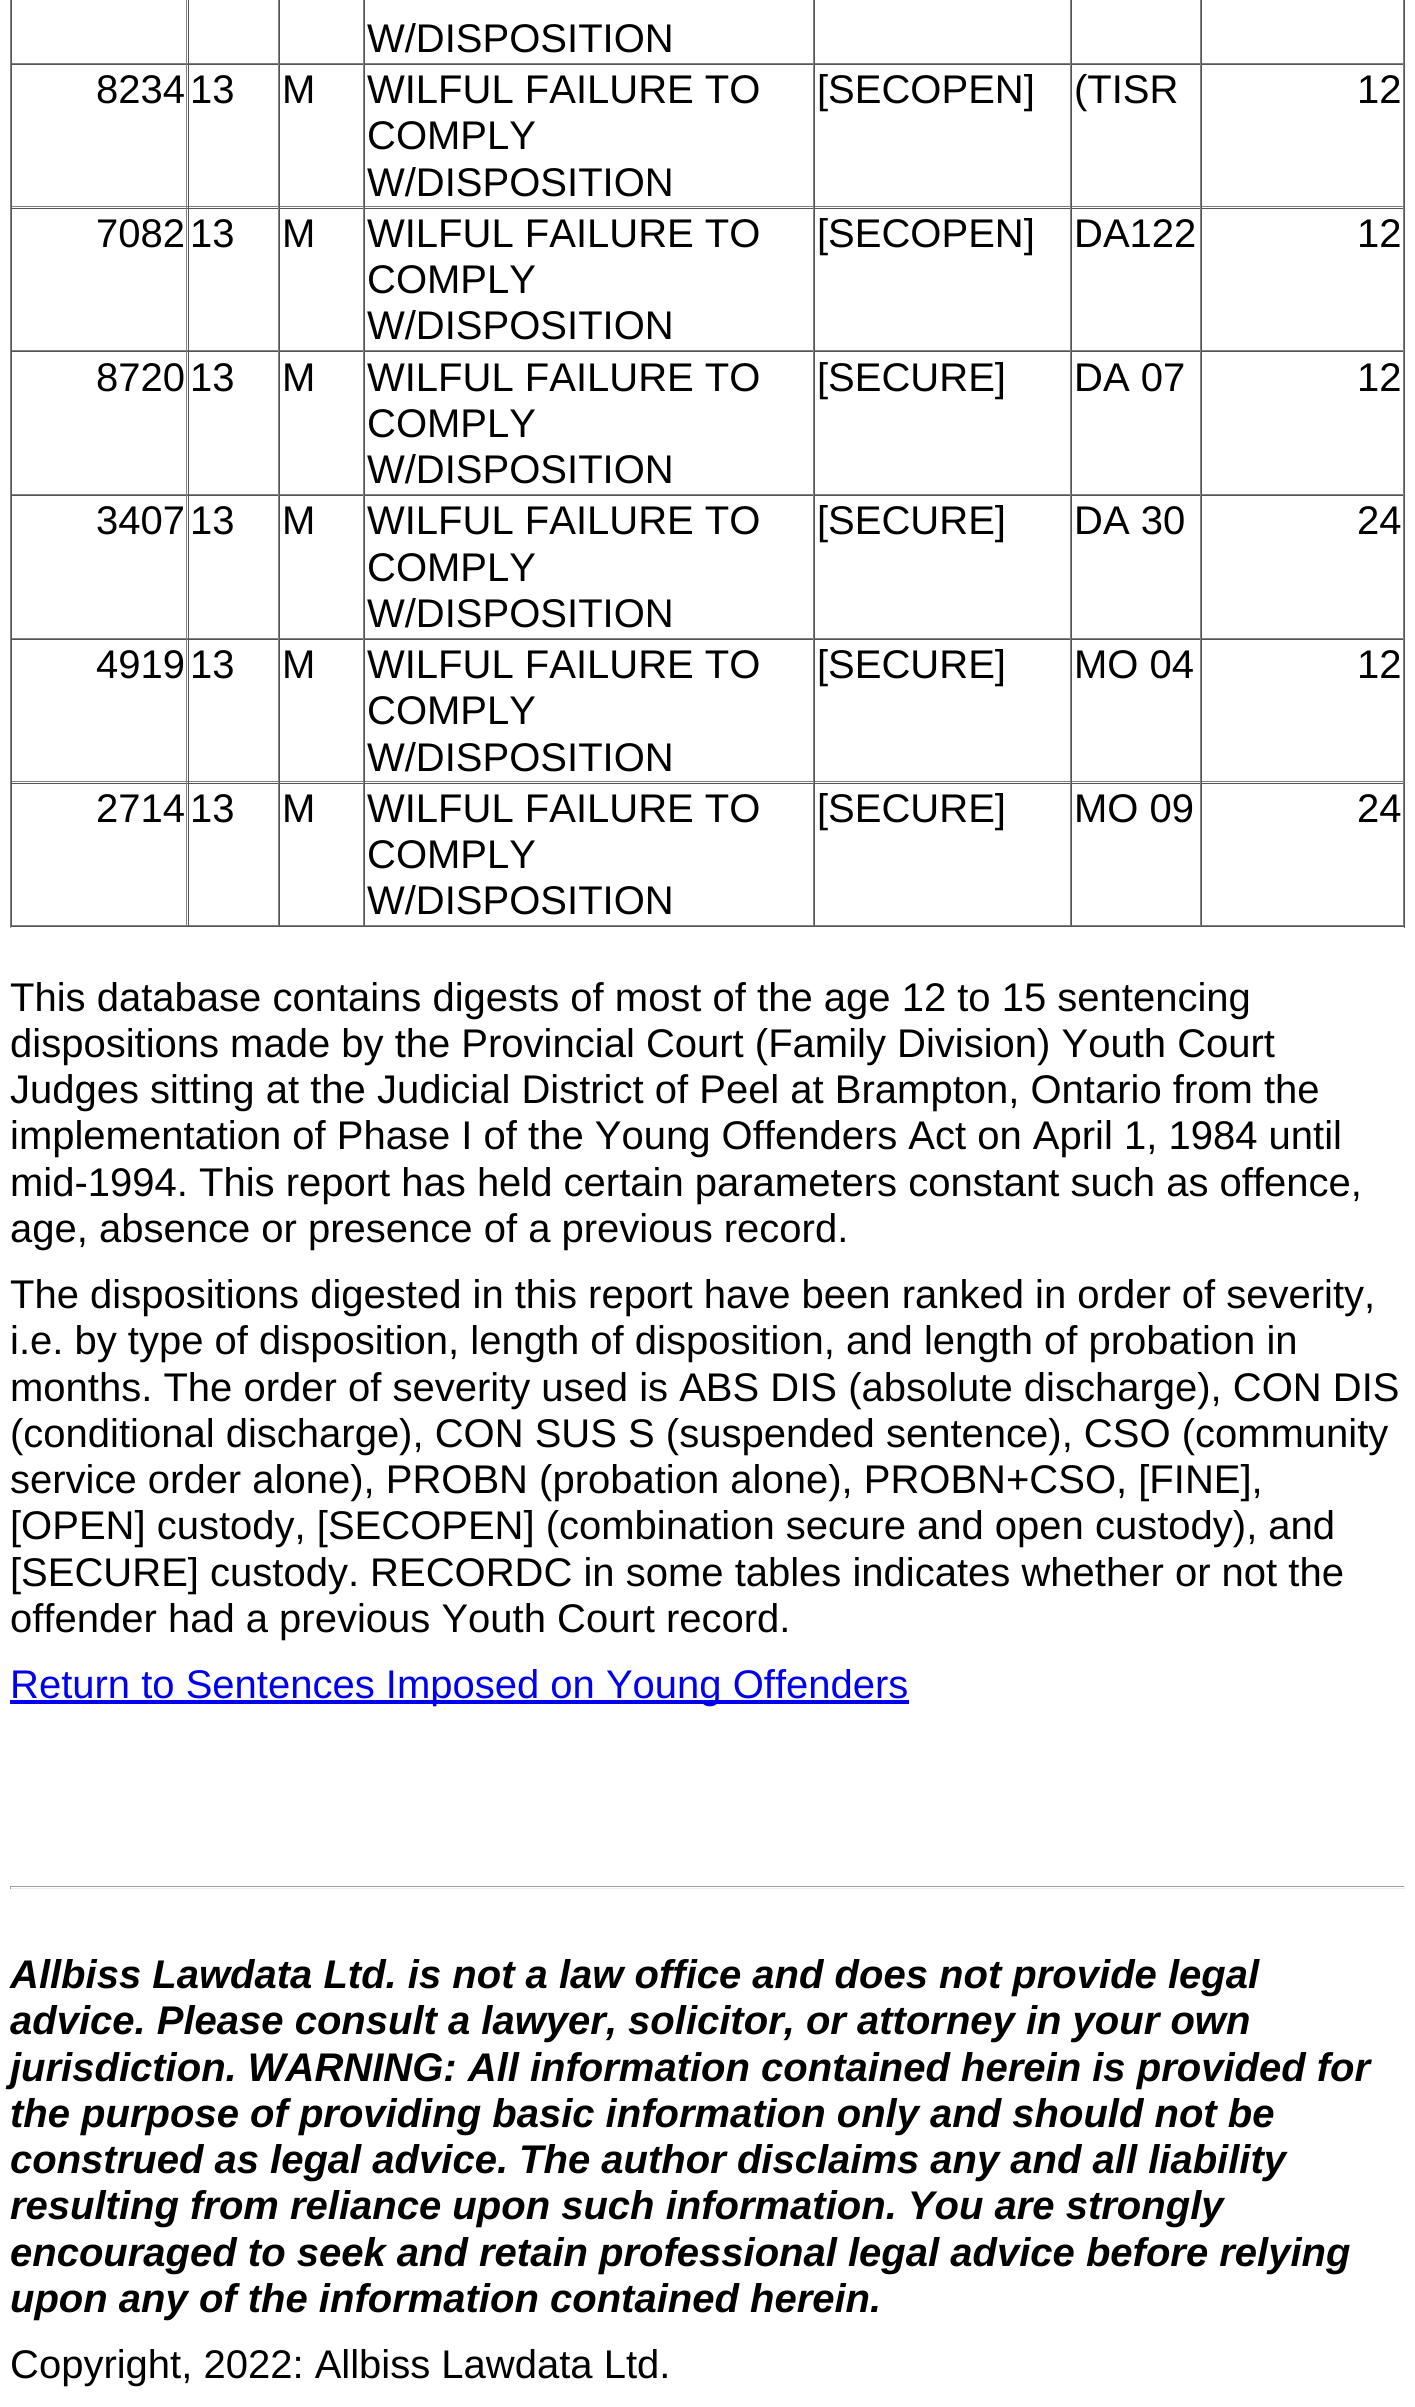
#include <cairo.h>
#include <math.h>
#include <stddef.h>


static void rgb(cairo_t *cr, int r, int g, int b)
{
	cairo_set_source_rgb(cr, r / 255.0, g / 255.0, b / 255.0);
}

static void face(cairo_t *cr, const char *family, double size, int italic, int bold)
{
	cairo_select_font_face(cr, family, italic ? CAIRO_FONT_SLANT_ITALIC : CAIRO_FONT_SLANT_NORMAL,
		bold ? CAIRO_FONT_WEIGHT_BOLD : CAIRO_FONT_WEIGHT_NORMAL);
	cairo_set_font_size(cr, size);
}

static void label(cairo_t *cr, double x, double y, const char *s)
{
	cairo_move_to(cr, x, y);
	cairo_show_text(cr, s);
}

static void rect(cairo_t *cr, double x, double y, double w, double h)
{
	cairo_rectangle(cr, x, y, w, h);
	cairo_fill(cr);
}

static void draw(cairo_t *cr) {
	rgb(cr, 255, 255, 255);
	cairo_paint(cr);
	rgb(cr, 85, 85, 85);
	rect(cr, 1404, 0, 1, 928);
	rect(cr, 10, 926, 1395, 1);
	rgb(cr, 128, 128, 128);
	rect(cr, 10, 0, 1, 928);
	rect(cr, 186, 0, 1, 64);
	rect(cr, 11, 63, 177, 1);
	rgb(cr, 85, 85, 85);
	rect(cr, 11, 0, 1, 64);
	rgb(cr, 128, 128, 128);
	rect(cr, 278, 0, 1, 64);
	rect(cr, 188, 63, 91, 1);
	rgb(cr, 85, 85, 85);
	rect(cr, 188, 0, 1, 64);
	rgb(cr, 128, 128, 128);
	rect(cr, 363, 0, 1, 64);
	rect(cr, 279, 63, 85, 1);
	rgb(cr, 85, 85, 85);
	rect(cr, 279, 0, 1, 64);
	rgb(cr, 128, 128, 128);
	rect(cr, 813, 0, 1, 64);
	rect(cr, 364, 63, 450, 1);
	rgb(cr, 85, 85, 85);
	rect(cr, 364, 0, 1, 64);
	face(cr, "Liberation Sans", 40, 0, 0);
	rgb(cr, 0, 0, 0);
	label(cr, 367, 52, "W/DISPOSITION");
	rgb(cr, 128, 128, 128);
	rect(cr, 1070, 0, 1, 64);
	rect(cr, 814, 63, 257, 1);
	rgb(cr, 85, 85, 85);
	rect(cr, 814, 0, 1, 64);
	rgb(cr, 128, 128, 128);
	rect(cr, 1200, 0, 1, 64);
	rect(cr, 1071, 63, 130, 1);
	rgb(cr, 85, 85, 85);
	rect(cr, 1071, 0, 1, 64);
	rgb(cr, 128, 128, 128);
	rect(cr, 1403, 0, 1, 64);
	rect(cr, 1201, 63, 203, 1);
	rgb(cr, 85, 85, 85);
	rect(cr, 1201, 0, 1, 64);
	rect(cr, 11, 64, 1393, 1);
	rgb(cr, 128, 128, 128);
	rect(cr, 186, 64, 1, 144);
	rect(cr, 11, 206, 177, 1);
	rgb(cr, 85, 85, 85);
	rect(cr, 11, 64, 1, 144);
	rgb(cr, 0, 0, 0);
	label(cr, 96, 103, "8234");
	rgb(cr, 128, 128, 128);
	rect(cr, 278, 64, 1, 144);
	rect(cr, 188, 206, 91, 1);
	rgb(cr, 85, 85, 85);
	rect(cr, 188, 64, 1, 144);
	rgb(cr, 0, 0, 0);
	label(cr, 190, 103, "13");
	rgb(cr, 128, 128, 128);
	rect(cr, 363, 64, 1, 144);
	rect(cr, 279, 206, 85, 1);
	rgb(cr, 85, 85, 85);
	rect(cr, 279, 64, 1, 144);
	rgb(cr, 0, 0, 0);
	label(cr, 282, 103, "M");
	rgb(cr, 128, 128, 128);
	rect(cr, 813, 64, 1, 144);
	rect(cr, 364, 206, 450, 1);
	rgb(cr, 85, 85, 85);
	rect(cr, 364, 64, 1, 144);
	rgb(cr, 0, 0, 0);
	label(cr, 367, 103, "WILFUL FAILURE TO");
	label(cr, 367, 149, "COMPLY");
	label(cr, 367, 196, "W/DISPOSITION");
	rgb(cr, 128, 128, 128);
	rect(cr, 1070, 64, 1, 144);
	rect(cr, 814, 206, 257, 1);
	rgb(cr, 85, 85, 85);
	rect(cr, 814, 64, 1, 144);
	rgb(cr, 0, 0, 0);
	label(cr, 817, 103, "[SECOPEN]");
	rgb(cr, 128, 128, 128);
	rect(cr, 1200, 64, 1, 144);
	rect(cr, 1071, 206, 130, 1);
	rgb(cr, 85, 85, 85);
	rect(cr, 1071, 64, 1, 144);
	rgb(cr, 0, 0, 0);
	label(cr, 1074, 103, "(TISR");
	rgb(cr, 128, 128, 128);
	rect(cr, 1403, 64, 1, 144);
	rect(cr, 1201, 206, 203, 1);
	rgb(cr, 85, 85, 85);
	rect(cr, 1201, 64, 1, 144);
	rgb(cr, 0, 0, 0);
	label(cr, 1357, 103, "12");
	rgb(cr, 85, 85, 85);
	rect(cr, 11, 208, 1393, 1);
	rgb(cr, 128, 128, 128);
	rect(cr, 186, 208, 1, 143);
	rect(cr, 11, 350, 177, 1);
	rgb(cr, 85, 85, 85);
	rect(cr, 11, 208, 1, 143);
	rgb(cr, 0, 0, 0);
	label(cr, 96, 247, "7082");
	rgb(cr, 128, 128, 128);
	rect(cr, 278, 208, 1, 143);
	rect(cr, 188, 350, 91, 1);
	rgb(cr, 85, 85, 85);
	rect(cr, 188, 208, 1, 143);
	rgb(cr, 0, 0, 0);
	label(cr, 190, 247, "13");
	rgb(cr, 128, 128, 128);
	rect(cr, 363, 208, 1, 143);
	rect(cr, 279, 350, 85, 1);
	rgb(cr, 85, 85, 85);
	rect(cr, 279, 208, 1, 143);
	rgb(cr, 0, 0, 0);
	label(cr, 282, 247, "M");
	rgb(cr, 128, 128, 128);
	rect(cr, 813, 208, 1, 143);
	rect(cr, 364, 350, 450, 1);
	rgb(cr, 85, 85, 85);
	rect(cr, 364, 208, 1, 143);
	rgb(cr, 0, 0, 0);
	label(cr, 367, 247, "WILFUL FAILURE TO");
	label(cr, 367, 293, "COMPLY");
	label(cr, 367, 339, "W/DISPOSITION");
	rgb(cr, 128, 128, 128);
	rect(cr, 1070, 208, 1, 143);
	rect(cr, 814, 350, 257, 1);
	rgb(cr, 85, 85, 85);
	rect(cr, 814, 208, 1, 143);
	rgb(cr, 0, 0, 0);
	label(cr, 817, 247, "[SECOPEN]");
	rgb(cr, 128, 128, 128);
	rect(cr, 1200, 208, 1, 143);
	rect(cr, 1071, 350, 130, 1);
	rgb(cr, 85, 85, 85);
	rect(cr, 1071, 208, 1, 143);
	rgb(cr, 0, 0, 0);
	label(cr, 1074, 247, "DA122");
	rgb(cr, 128, 128, 128);
	rect(cr, 1403, 208, 1, 143);
	rect(cr, 1201, 350, 203, 1);
	rgb(cr, 85, 85, 85);
	rect(cr, 1201, 208, 1, 143);
	rgb(cr, 0, 0, 0);
	label(cr, 1357, 247, "12");
	rgb(cr, 85, 85, 85);
	rect(cr, 11, 351, 1393, 1);
	rgb(cr, 128, 128, 128);
	rect(cr, 186, 351, 1, 144);
	rect(cr, 11, 494, 177, 1);
	rgb(cr, 85, 85, 85);
	rect(cr, 11, 351, 1, 144);
	rgb(cr, 0, 0, 0);
	label(cr, 96, 391, "8720");
	rgb(cr, 128, 128, 128);
	rect(cr, 278, 351, 1, 144);
	rect(cr, 188, 494, 91, 1);
	rgb(cr, 85, 85, 85);
	rect(cr, 188, 351, 1, 144);
	rgb(cr, 0, 0, 0);
	label(cr, 190, 391, "13");
	rgb(cr, 128, 128, 128);
	rect(cr, 363, 351, 1, 144);
	rect(cr, 279, 494, 85, 1);
	rgb(cr, 85, 85, 85);
	rect(cr, 279, 351, 1, 144);
	rgb(cr, 0, 0, 0);
	label(cr, 282, 391, "M");
	rgb(cr, 128, 128, 128);
	rect(cr, 813, 351, 1, 144);
	rect(cr, 364, 494, 450, 1);
	rgb(cr, 85, 85, 85);
	rect(cr, 364, 351, 1, 144);
	rgb(cr, 0, 0, 0);
	label(cr, 367, 391, "WILFUL FAILURE TO");
	label(cr, 367, 437, "COMPLY");
	label(cr, 367, 483, "W/DISPOSITION");
	rgb(cr, 128, 128, 128);
	rect(cr, 1070, 351, 1, 144);
	rect(cr, 814, 494, 257, 1);
	rgb(cr, 85, 85, 85);
	rect(cr, 814, 351, 1, 144);
	rgb(cr, 0, 0, 0);
	label(cr, 817, 391, "[SECURE]");
	rgb(cr, 128, 128, 128);
	rect(cr, 1200, 351, 1, 144);
	rect(cr, 1071, 494, 130, 1);
	rgb(cr, 85, 85, 85);
	rect(cr, 1071, 351, 1, 144);
	rgb(cr, 0, 0, 0);
	label(cr, 1074, 391, "DA 07");
	rgb(cr, 128, 128, 128);
	rect(cr, 1403, 351, 1, 144);
	rect(cr, 1201, 494, 203, 1);
	rgb(cr, 85, 85, 85);
	rect(cr, 1201, 351, 1, 144);
	rgb(cr, 0, 0, 0);
	label(cr, 1357, 391, "12");
	rgb(cr, 85, 85, 85);
	rect(cr, 11, 495, 1393, 1);
	rgb(cr, 128, 128, 128);
	rect(cr, 186, 495, 1, 144);
	rect(cr, 11, 638, 177, 1);
	rgb(cr, 85, 85, 85);
	rect(cr, 11, 495, 1, 144);
	rgb(cr, 0, 0, 0);
	label(cr, 96, 534, "3407");
	rgb(cr, 128, 128, 128);
	rect(cr, 278, 495, 1, 144);
	rect(cr, 188, 638, 91, 1);
	rgb(cr, 85, 85, 85);
	rect(cr, 188, 495, 1, 144);
	rgb(cr, 0, 0, 0);
	label(cr, 190, 534, "13");
	rgb(cr, 128, 128, 128);
	rect(cr, 363, 495, 1, 144);
	rect(cr, 279, 638, 85, 1);
	rgb(cr, 85, 85, 85);
	rect(cr, 279, 495, 1, 144);
	rgb(cr, 0, 0, 0);
	label(cr, 282, 534, "M");
	rgb(cr, 128, 128, 128);
	rect(cr, 813, 495, 1, 144);
	rect(cr, 364, 638, 450, 1);
	rgb(cr, 85, 85, 85);
	rect(cr, 364, 495, 1, 144);
	rgb(cr, 0, 0, 0);
	label(cr, 367, 534, "WILFUL FAILURE TO");
	label(cr, 367, 581, "COMPLY");
	label(cr, 367, 627, "W/DISPOSITION");
	rgb(cr, 128, 128, 128);
	rect(cr, 1070, 495, 1, 144);
	rect(cr, 814, 638, 257, 1);
	rgb(cr, 85, 85, 85);
	rect(cr, 814, 495, 1, 144);
	rgb(cr, 0, 0, 0);
	label(cr, 817, 534, "[SECURE]");
	rgb(cr, 128, 128, 128);
	rect(cr, 1200, 495, 1, 144);
	rect(cr, 1071, 638, 130, 1);
	rgb(cr, 85, 85, 85);
	rect(cr, 1071, 495, 1, 144);
	rgb(cr, 0, 0, 0);
	label(cr, 1074, 534, "DA 30");
	rgb(cr, 128, 128, 128);
	rect(cr, 1403, 495, 1, 144);
	rect(cr, 1201, 638, 203, 1);
	rgb(cr, 85, 85, 85);
	rect(cr, 1201, 495, 1, 144);
	rgb(cr, 0, 0, 0);
	label(cr, 1357, 534, "24");
	rgb(cr, 85, 85, 85);
	rect(cr, 11, 639, 1393, 1);
	rgb(cr, 128, 128, 128);
	rect(cr, 186, 639, 1, 144);
	rect(cr, 11, 781, 177, 1);
	rgb(cr, 85, 85, 85);
	rect(cr, 11, 639, 1, 144);
	rgb(cr, 0, 0, 0);
	label(cr, 96, 678, "4919");
	rgb(cr, 128, 128, 128);
	rect(cr, 278, 639, 1, 144);
	rect(cr, 188, 781, 91, 1);
	rgb(cr, 85, 85, 85);
	rect(cr, 188, 639, 1, 144);
	rgb(cr, 0, 0, 0);
	label(cr, 190, 678, "13");
	rgb(cr, 128, 128, 128);
	rect(cr, 363, 639, 1, 144);
	rect(cr, 279, 781, 85, 1);
	rgb(cr, 85, 85, 85);
	rect(cr, 279, 639, 1, 144);
	rgb(cr, 0, 0, 0);
	label(cr, 282, 678, "M");
	rgb(cr, 128, 128, 128);
	rect(cr, 813, 639, 1, 144);
	rect(cr, 364, 781, 450, 1);
	rgb(cr, 85, 85, 85);
	rect(cr, 364, 639, 1, 144);
	rgb(cr, 0, 0, 0);
	label(cr, 367, 678, "WILFUL FAILURE TO");
	label(cr, 367, 724, "COMPLY");
	label(cr, 367, 771, "W/DISPOSITION");
	rgb(cr, 128, 128, 128);
	rect(cr, 1070, 639, 1, 144);
	rect(cr, 814, 781, 257, 1);
	rgb(cr, 85, 85, 85);
	rect(cr, 814, 639, 1, 144);
	rgb(cr, 0, 0, 0);
	label(cr, 817, 678, "[SECURE]");
	rgb(cr, 128, 128, 128);
	rect(cr, 1200, 639, 1, 144);
	rect(cr, 1071, 781, 130, 1);
	rgb(cr, 85, 85, 85);
	rect(cr, 1071, 639, 1, 144);
	rgb(cr, 0, 0, 0);
	label(cr, 1074, 678, "MO 04");
	rgb(cr, 128, 128, 128);
	rect(cr, 1403, 639, 1, 144);
	rect(cr, 1201, 781, 203, 1);
	rgb(cr, 85, 85, 85);
	rect(cr, 1201, 639, 1, 144);
	rgb(cr, 0, 0, 0);
	label(cr, 1357, 678, "12");
	rgb(cr, 85, 85, 85);
	rect(cr, 11, 783, 1393, 1);
	rgb(cr, 128, 128, 128);
	rect(cr, 186, 783, 1, 143);
	rect(cr, 11, 925, 177, 1);
	rgb(cr, 85, 85, 85);
	rect(cr, 11, 783, 1, 143);
	rgb(cr, 0, 0, 0);
	label(cr, 96, 822, "2714");
	rgb(cr, 128, 128, 128);
	rect(cr, 278, 783, 1, 143);
	rect(cr, 188, 925, 91, 1);
	rgb(cr, 85, 85, 85);
	rect(cr, 188, 783, 1, 143);
	rgb(cr, 0, 0, 0);
	label(cr, 190, 822, "13");
	rgb(cr, 128, 128, 128);
	rect(cr, 363, 783, 1, 143);
	rect(cr, 279, 925, 85, 1);
	rgb(cr, 85, 85, 85);
	rect(cr, 279, 783, 1, 143);
	rgb(cr, 0, 0, 0);
	label(cr, 282, 822, "M");
	rgb(cr, 128, 128, 128);
	rect(cr, 813, 783, 1, 143);
	rect(cr, 364, 925, 450, 1);
	rgb(cr, 85, 85, 85);
	rect(cr, 364, 783, 1, 143);
	rgb(cr, 0, 0, 0);
	label(cr, 367, 822, "WILFUL FAILURE TO");
	label(cr, 367, 868, "COMPLY");
	label(cr, 367, 914, "W/DISPOSITION");
	rgb(cr, 128, 128, 128);
	rect(cr, 1070, 783, 1, 143);
	rect(cr, 814, 925, 257, 1);
	rgb(cr, 85, 85, 85);
	rect(cr, 814, 783, 1, 143);
	rgb(cr, 0, 0, 0);
	label(cr, 817, 822, "[SECURE]");
	rgb(cr, 128, 128, 128);
	rect(cr, 1200, 783, 1, 143);
	rect(cr, 1071, 925, 130, 1);
	rgb(cr, 85, 85, 85);
	rect(cr, 1071, 783, 1, 143);
	rgb(cr, 0, 0, 0);
	label(cr, 1074, 822, "MO 09");
	rgb(cr, 128, 128, 128);
	rect(cr, 1403, 783, 1, 143);
	rect(cr, 1201, 925, 203, 1);
	rgb(cr, 85, 85, 85);
	rect(cr, 1201, 783, 1, 143);
	rgb(cr, 0, 0, 0);
	label(cr, 1357, 822, "24");
	label(cr, 10, 1011, "This database contains digests of most of the age 12 to 15 sentencing");
	label(cr, 10, 1057, "dispositions made by the Provincial Court (Family Division) Youth Court");
	label(cr, 10, 1103, "Judges sitting at the Judicial District of Peel at Brampton, Ontario from the");
	label(cr, 10, 1149, "implementation of Phase I of the Young Offenders Act on April 1, 1984 until");
	label(cr, 10, 1196, "mid-1994. This report has held certain parameters constant such as offence,");
	label(cr, 10, 1242, "age, absence or presence of a previous record.");
	label(cr, 10, 1308, "The dispositions digested in this report have been ranked in order of severity,");
	label(cr, 10, 1354, "i.e. by type of disposition, length of disposition, and length of probation in");
	label(cr, 10, 1401, "months. The order of severity used is ABS DIS (absolute discharge), CON DIS");
	label(cr, 10, 1447, "(conditional discharge), CON SUS S (suspended sentence), CSO (community");
	label(cr, 10, 1493, "service order alone), PROBN (probation alone), PROBN+CSO, [FINE],");
	label(cr, 10, 1539, "[OPEN] custody, [SECOPEN] (combination secure and open custody), and");
	label(cr, 10, 1586, "[SECURE] custody. RECORDC in some tables indicates whether or not the");
	label(cr, 10, 1632, "offender had a previous Youth Court record.");
	rgb(cr, 0, 0, 238);
	rect(cr, 10, 1700, 899, 4);
	label(cr, 10, 1698, "Return to Sentences Imposed on Young Offenders");
	rgb(cr, 159, 159, 159);
	rect(cr, 10, 1886, 1395, 1);
	rgb(cr, 238, 238, 238);
	rect(cr, 1404, 1886, 1, 3);
	rect(cr, 10, 1888, 1395, 1);
	rgb(cr, 159, 159, 159);
	rect(cr, 10, 1886, 1, 3);
	face(cr, "Liberation Sans", 40, 1, 1);
	rgb(cr, 0, 0, 0);
	label(cr, 10, 1988, "Allbiss Lawdata Ltd. is not a law office and does not provide legal");
	label(cr, 10, 2034, "advice. Please consult a lawyer, solicitor, or attorney in your own");
	label(cr, 10, 2081, "jurisdiction. WARNING: All information contained herein is provided for");
	label(cr, 10, 2127, "the purpose of providing basic information only and should not be");
	label(cr, 10, 2173, "construed as legal advice. The author disclaims any and all liability");
	label(cr, 10, 2219, "resulting from reliance upon such information. You are strongly");
	label(cr, 10, 2266, "encouraged to seek and retain professional legal advice before relying");
	label(cr, 10, 2312, "upon any of the information contained herein.");
	face(cr, "Liberation Sans", 40, 0, 0);
	label(cr, 10, 2378, "Copyright, 2022: Allbiss Lawdata Ltd.");
}

int main(void) {
	cairo_surface_t *surface = cairo_image_surface_create(CAIRO_FORMAT_RGB24, 1415, 2407);
	cairo_t *cr = cairo_create(surface);
	cairo_font_options_t *options = cairo_font_options_create();
	cairo_font_options_set_hint_metrics(options, CAIRO_HINT_METRICS_OFF);
	cairo_font_options_set_hint_style(options, CAIRO_HINT_STYLE_NONE);
	cairo_set_font_options(cr, options);
	cairo_set_miter_limit(cr, 4);
	draw(cr);
	cairo_surface_write_to_png(surface, "render.png");
	cairo_font_options_destroy(options);
	cairo_destroy(cr);
	cairo_surface_destroy(surface);
	return 0;
}
